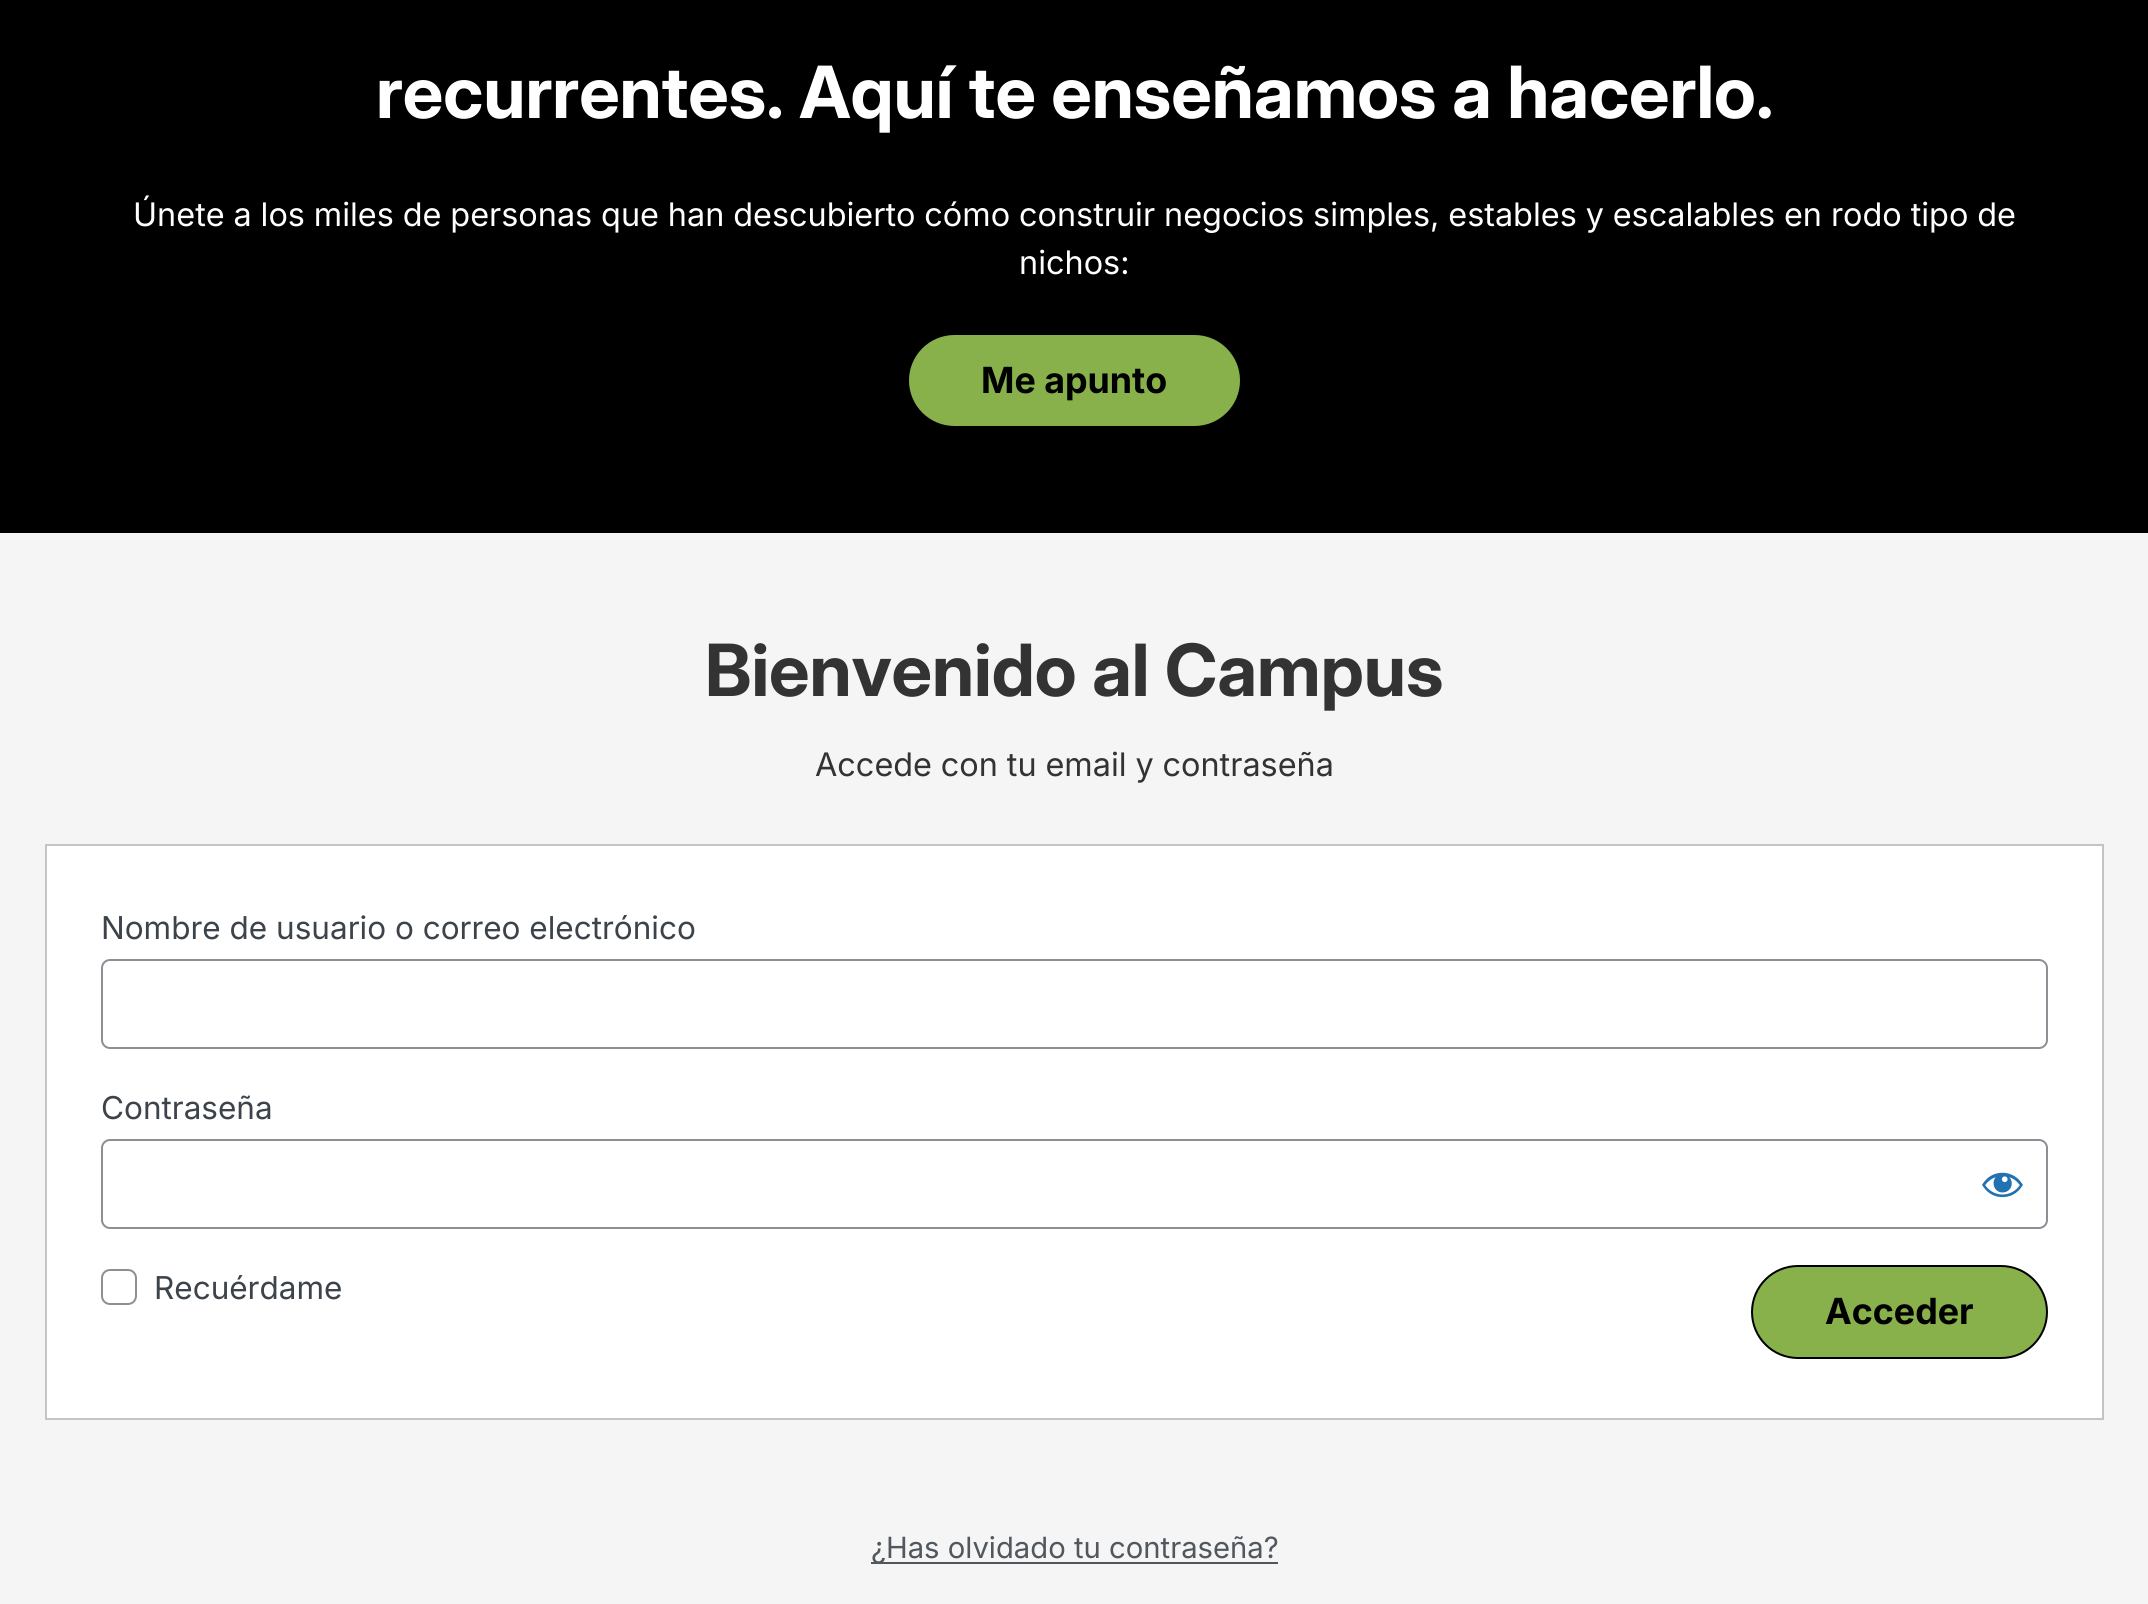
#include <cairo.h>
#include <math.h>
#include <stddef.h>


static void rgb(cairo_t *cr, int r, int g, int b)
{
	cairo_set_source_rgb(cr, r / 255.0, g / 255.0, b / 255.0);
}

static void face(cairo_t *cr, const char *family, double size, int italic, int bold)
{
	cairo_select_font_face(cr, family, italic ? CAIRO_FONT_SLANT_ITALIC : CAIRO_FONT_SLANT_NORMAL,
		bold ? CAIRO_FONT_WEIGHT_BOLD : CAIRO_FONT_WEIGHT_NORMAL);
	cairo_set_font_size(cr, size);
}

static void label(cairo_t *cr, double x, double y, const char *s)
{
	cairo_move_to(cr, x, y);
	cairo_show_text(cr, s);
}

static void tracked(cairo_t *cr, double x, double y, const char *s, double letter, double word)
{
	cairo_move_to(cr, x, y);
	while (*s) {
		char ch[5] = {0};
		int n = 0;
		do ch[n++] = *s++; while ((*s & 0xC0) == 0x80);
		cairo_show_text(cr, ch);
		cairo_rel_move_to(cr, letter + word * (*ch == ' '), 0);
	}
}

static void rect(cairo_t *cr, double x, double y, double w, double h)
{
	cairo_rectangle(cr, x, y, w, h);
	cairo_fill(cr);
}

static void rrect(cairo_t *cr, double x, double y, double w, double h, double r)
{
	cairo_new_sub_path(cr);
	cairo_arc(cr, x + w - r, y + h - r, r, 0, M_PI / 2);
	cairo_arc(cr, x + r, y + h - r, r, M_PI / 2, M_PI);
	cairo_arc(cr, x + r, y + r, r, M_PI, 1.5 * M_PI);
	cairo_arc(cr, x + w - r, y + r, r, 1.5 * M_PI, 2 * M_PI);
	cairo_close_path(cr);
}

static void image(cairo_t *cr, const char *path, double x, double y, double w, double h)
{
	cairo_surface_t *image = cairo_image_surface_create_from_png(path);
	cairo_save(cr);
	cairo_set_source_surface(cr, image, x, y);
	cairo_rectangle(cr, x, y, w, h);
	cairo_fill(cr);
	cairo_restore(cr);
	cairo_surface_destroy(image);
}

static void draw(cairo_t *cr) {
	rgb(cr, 245, 245, 245);
	cairo_paint(cr);
	rgb(cr, 0, 0, 0);
	rect(cr, 0, 0, 2148, 533);
	face(cr, "Inter", 72, 0, 1);
	rgb(cr, 255, 255, 255);
	label(cr, 376, 118, "recurrentes. Aquí te enseñamos a hacerlo.");
	face(cr, "Inter", 32.4, 0, 0);
	tracked(cr, 133, 226, "Únete a los miles de personas que han descubierto cómo construir negocios simples, estables y escalables en rodo tipo de", 0, -0.25);
	label(cr, 1019, 274, "nichos:");
	rgb(cr, 136, 176, 75);
	rrect(cr, 908, 334, 333, 93, 46.5);
	cairo_fill_preserve(cr);
	rgb(cr, 0, 0, 0);
	cairo_stroke(cr);
	face(cr, "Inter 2", 36, 0, 1);
	label(cr, 981, 393, "Me apunto");
	face(cr, "Inter", 72, 0, 1);
	rgb(cr, 51, 51, 51);
	label(cr, 705, 696, "Bienvenido al Campus");
	face(cr, "Inter", 32.4, 0, 0);
	tracked(cr, 815, 776, "Accede con tu email y contraseña", 0, -0.25);
	rgb(cr, 255, 255, 255);
	cairo_rectangle(cr, 46, 845, 2057, 574);
	cairo_fill_preserve(cr);
	rgb(cr, 195, 196, 199);
	cairo_stroke(cr);
	face(cr, "Inter", 31.5, 0, 0);
	rgb(cr, 60, 67, 74);
	label(cr, 101, 939, "Nombre de usuario o correo electrónico");
	rrect(cr, 102, 960, 1945, 88, 8);
	rgb(cr, 140, 143, 148);
	cairo_stroke(cr);
	rgb(cr, 60, 67, 74);
	label(cr, 101, 1119, "Contraseña");
	rrect(cr, 102, 1140, 1945, 88, 8);
	rgb(cr, 140, 143, 148);
	cairo_stroke(cr);
	image(cr, "image0.png", 1982, 1172, 41, 26);
	rrect(cr, 102, 1270, 34, 34, 8);
	cairo_stroke(cr);
	rgb(cr, 60, 67, 74);
	label(cr, 154, 1299, "Recuérdame");
	rgb(cr, 136, 176, 75);
	rrect(cr, 1752, 1266, 295, 92, 46);
	cairo_fill_preserve(cr);
	rgb(cr, 0, 0, 0);
	cairo_stroke(cr);
	face(cr, "Inter 2", 36, 0, 1);
	label(cr, 1825, 1324, "Acceder");
	rgb(cr, 80, 87, 94);
	rect(cr, 871, 1562, 407, 2);
	face(cr, "Inter", 29.25, 0, 0);
	label(cr, 871, 1558, "¿Has olvidado tu contraseña?");
}

int main(void) {
	cairo_surface_t *surface = cairo_image_surface_create(CAIRO_FORMAT_RGB24, 2148, 1604);
	cairo_t *cr = cairo_create(surface);
	cairo_font_options_t *options = cairo_font_options_create();
	cairo_font_options_set_hint_metrics(options, CAIRO_HINT_METRICS_OFF);
	cairo_font_options_set_hint_style(options, CAIRO_HINT_STYLE_NONE);
	cairo_set_font_options(cr, options);
	cairo_set_miter_limit(cr, 4);
	draw(cr);
	cairo_surface_write_to_png(surface, "render.png");
	cairo_font_options_destroy(options);
	cairo_destroy(cr);
	cairo_surface_destroy(surface);
	return 0;
}
